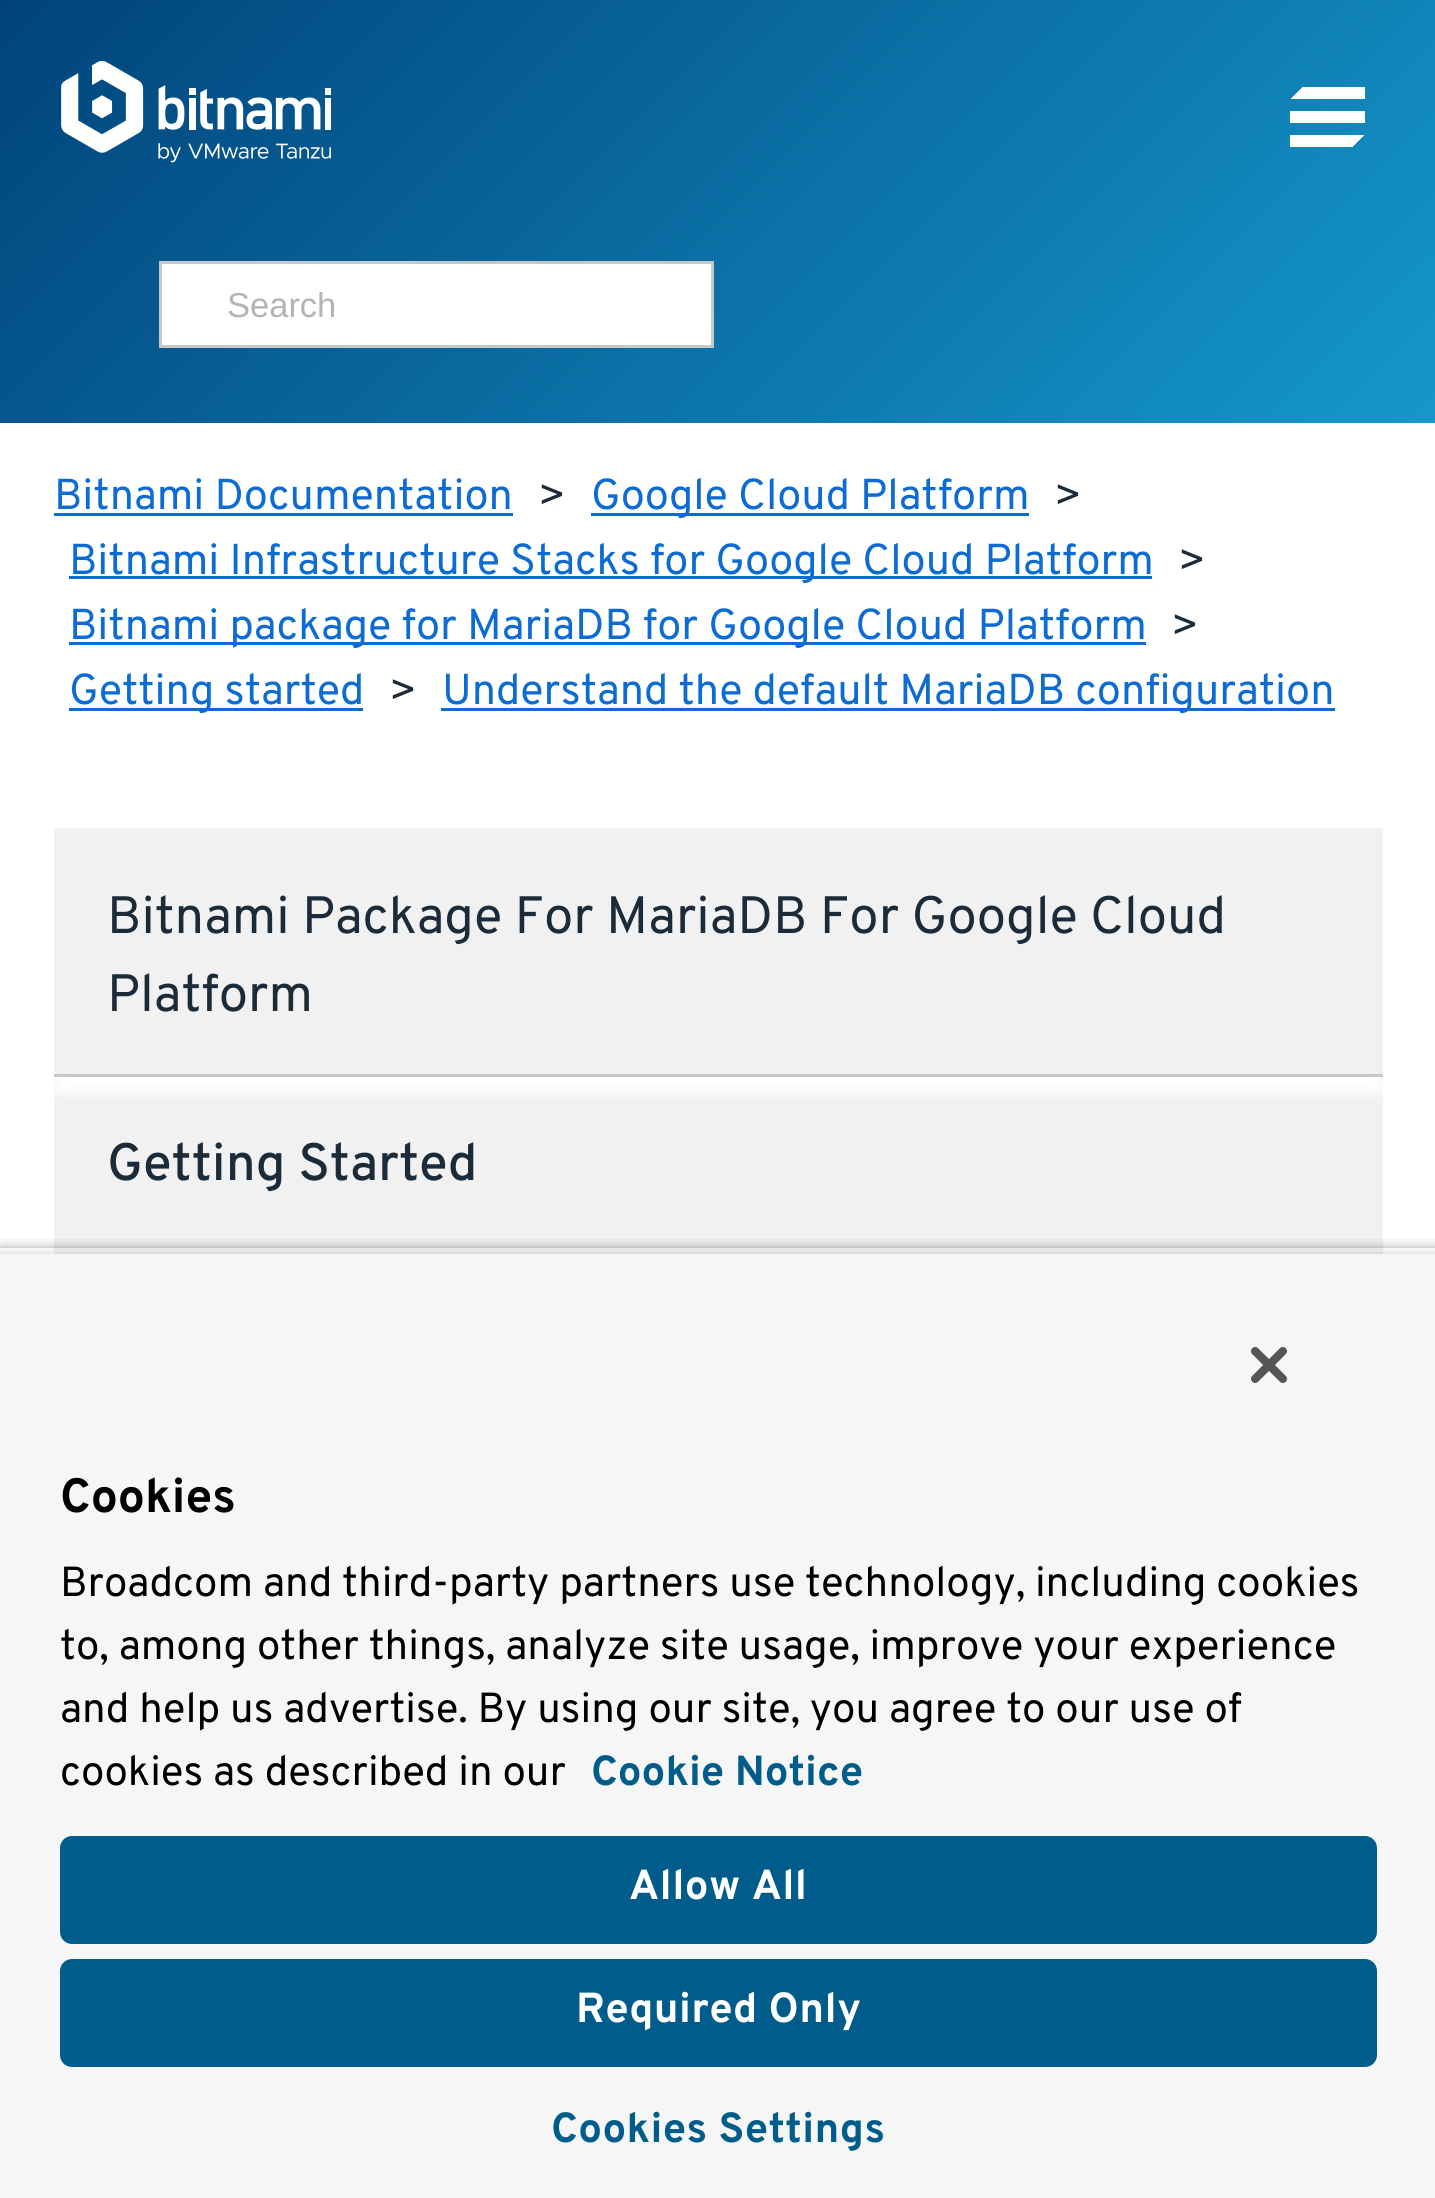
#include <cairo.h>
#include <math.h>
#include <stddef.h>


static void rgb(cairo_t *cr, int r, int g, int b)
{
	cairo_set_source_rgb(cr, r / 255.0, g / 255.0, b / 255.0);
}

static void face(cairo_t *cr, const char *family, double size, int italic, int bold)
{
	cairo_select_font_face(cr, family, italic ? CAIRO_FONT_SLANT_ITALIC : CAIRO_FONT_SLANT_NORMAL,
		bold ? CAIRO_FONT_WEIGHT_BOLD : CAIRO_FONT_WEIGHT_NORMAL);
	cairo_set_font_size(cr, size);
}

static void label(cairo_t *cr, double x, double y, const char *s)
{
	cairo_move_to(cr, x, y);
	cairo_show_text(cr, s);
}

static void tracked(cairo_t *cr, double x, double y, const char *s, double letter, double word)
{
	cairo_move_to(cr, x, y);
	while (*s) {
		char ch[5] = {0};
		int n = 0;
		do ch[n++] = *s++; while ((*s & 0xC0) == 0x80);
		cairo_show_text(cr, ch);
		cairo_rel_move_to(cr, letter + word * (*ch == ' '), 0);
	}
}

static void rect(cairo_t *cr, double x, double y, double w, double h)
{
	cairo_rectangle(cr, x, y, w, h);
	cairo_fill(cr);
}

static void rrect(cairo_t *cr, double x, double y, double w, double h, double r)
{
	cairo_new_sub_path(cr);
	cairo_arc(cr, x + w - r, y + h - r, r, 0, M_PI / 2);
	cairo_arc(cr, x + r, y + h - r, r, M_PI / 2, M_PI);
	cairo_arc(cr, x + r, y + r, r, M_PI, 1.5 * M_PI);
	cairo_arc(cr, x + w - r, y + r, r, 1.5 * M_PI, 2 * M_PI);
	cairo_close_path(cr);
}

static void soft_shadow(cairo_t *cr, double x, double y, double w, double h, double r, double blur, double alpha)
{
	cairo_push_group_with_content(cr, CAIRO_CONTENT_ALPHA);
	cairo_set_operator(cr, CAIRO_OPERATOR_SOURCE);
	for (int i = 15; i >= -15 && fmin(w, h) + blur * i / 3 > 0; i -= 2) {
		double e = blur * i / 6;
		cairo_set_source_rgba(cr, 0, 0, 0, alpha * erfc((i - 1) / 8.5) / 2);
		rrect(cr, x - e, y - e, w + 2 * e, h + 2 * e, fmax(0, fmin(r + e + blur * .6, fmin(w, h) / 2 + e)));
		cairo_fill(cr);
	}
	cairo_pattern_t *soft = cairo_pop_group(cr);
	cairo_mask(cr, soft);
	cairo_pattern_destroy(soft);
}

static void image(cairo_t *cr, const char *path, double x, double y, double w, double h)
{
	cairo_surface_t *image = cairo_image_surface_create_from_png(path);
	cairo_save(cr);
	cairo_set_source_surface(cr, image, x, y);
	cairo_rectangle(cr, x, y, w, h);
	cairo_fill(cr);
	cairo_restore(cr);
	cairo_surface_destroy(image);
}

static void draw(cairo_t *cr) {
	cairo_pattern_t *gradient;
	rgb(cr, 255, 255, 255);
	cairo_paint(cr);
	gradient = cairo_pattern_create_linear(253, -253, 1184, 677);
	cairo_pattern_add_color_stop_rgba(gradient, 0, 0, 0.263, 0.482, 1);
	cairo_pattern_add_color_stop_rgba(gradient, 1, 0.082, 0.596, 0.796, 1);
	cairo_set_source(cr, gradient);
	cairo_pattern_destroy(gradient);
	rect(cr, 0, 0, 1435, 423);
	image(cr, "image0.png", 61, 60, 270, 103);
	gradient = cairo_pattern_create_linear(1306, 71, 1349, 115);
	cairo_pattern_add_color_stop_rgba(gradient, 0.15, 1, 1, 1, 0);
	cairo_pattern_add_color_stop_rgba(gradient, 0.15, 1, 1, 1, 1);
	cairo_pattern_add_color_stop_rgba(gradient, 1, 1, 1, 1, 1);
	cairo_set_source(cr, gradient);
	cairo_pattern_destroy(gradient);
	rect(cr, 1291, 87, 74, 12);
	rgb(cr, 255, 255, 255);
	rect(cr, 1290, 111, 75, 12);
	gradient = cairo_pattern_create_linear(1349, 163, 1306, 119);
	cairo_pattern_add_color_stop_rgba(gradient, 0.15, 1, 1, 1, 0);
	cairo_pattern_add_color_stop_rgba(gradient, 0.15, 1, 1, 1, 1);
	cairo_pattern_add_color_stop_rgba(gradient, 1, 1, 1, 1, 1);
	cairo_set_source(cr, gradient);
	cairo_pattern_destroy(gradient);
	rect(cr, 1290, 135, 74, 12);
	rgb(cr, 255, 255, 255);
	cairo_rectangle(cr, 160.5, 262.5, 552, 84);
	cairo_fill_preserve(cr);
	rgb(cr, 199, 201, 200);
	cairo_set_line_width(cr, 3);
	cairo_stroke(cr);
	face(cr, "Liberation Sans", 34.5, 0, 0);
	rgb(cr, 179, 181, 180);
	label(cr, 227, 317, "Search");
	face(cr, "Overpass", 43.2, 0, 0);
	rgb(cr, 13, 108, 212);
	label(cr, 54, 509, "Bitnami Documentation");
	rect(cr, 54, 513, 459, 3);
	rgb(cr, 28, 43, 57);
	label(cr, 538, 509, ">");
	rgb(cr, 13, 108, 212);
	rect(cr, 591, 513, 438, 3);
	label(cr, 591, 509, "Google Cloud Platform");
	rgb(cr, 28, 43, 57);
	label(cr, 1054, 509, ">");
	rgb(cr, 13, 108, 212);
	rect(cr, 69, 576, 1083, 3);
	label(cr, 69, 574, "Bitnami Infrastructure Stacks for Google Cloud Platform");
	rgb(cr, 28, 43, 57);
	label(cr, 1178, 574, ">");
	rgb(cr, 13, 108, 212);
	rect(cr, 69, 642, 1077, 3);
	label(cr, 69, 639, "Bitnami package for MariaDB for Google Cloud Platform");
	rgb(cr, 28, 43, 57);
	label(cr, 1171, 639, ">");
	rgb(cr, 13, 108, 212);
	rect(cr, 69, 708, 294, 3);
	label(cr, 69, 704, "Getting started");
	rgb(cr, 28, 43, 57);
	label(cr, 389, 704, ">");
	rgb(cr, 13, 108, 212);
	rect(cr, 441, 708, 894, 3);
	label(cr, 442, 704, "Understand the default MariaDB configuration");
	rgb(cr, 241, 241, 241);
	rect(cr, 54, 828, 1329, 426);
	cairo_save(cr);
	cairo_set_fill_rule(cr, CAIRO_FILL_RULE_EVEN_ODD);
	cairo_new_path(cr);
	cairo_move_to(cr, 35, 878);
	cairo_line_to(cr, 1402, 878);
	cairo_line_to(cr, 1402, 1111);
	cairo_line_to(cr, 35, 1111);
	cairo_close_path(cr);
	cairo_move_to(cr, 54, 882);
	cairo_line_to(cr, 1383, 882);
	cairo_line_to(cr, 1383, 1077);
	cairo_line_to(cr, 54, 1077);
	cairo_close_path(cr);
	cairo_clip(cr);
	rgb(cr, 255, 255, 255);
	soft_shadow(cr, 54, 897, 1329, 195, 0, 6, 1);
	cairo_restore(cr);
	rgb(cr, 199, 201, 200);
	rect(cr, 54, 1074, 1329, 3);
	face(cr, "Overpass", 52.5, 0, 0);
	rgb(cr, 28, 43, 57);
	label(cr, 107, 933, "Bitnami Package For MariaDB For Google Cloud");
	label(cr, 107, 1011, "Platform");
	face(cr, "Overpass Medium", 52.5, 0, 0);
	label(cr, 107, 1180, "Getting Started");
	cairo_save(cr);
	cairo_rectangle(cr, 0, 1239, 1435, 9);
	cairo_clip(cr);
	rgb(cr, 0, 0, 0);
	soft_shadow(cr, 0, 1248, 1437, 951, 0, 6, 0.35);
	cairo_restore(cr);
	cairo_save(cr);
	cairo_rectangle(cr, 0, 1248, 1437, 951);
	cairo_clip(cr);
	rgb(cr, 0, 0, 0);
	soft_shadow(cr, 0, 1254, 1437, 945, 0, 6, 0.2);
	cairo_restore(cr);
	rgb(cr, 246, 246, 246);
	rect(cr, 0, 1254, 1435, 944);
	image(cr, "image1.png", 1251, 1347, 36, 36);
	face(cr, "Overpass", 48, 0, 1);
	rgb(cr, 0, 0, 0);
	label(cr, 60, 1512, "Cookies");
	face(cr, "Overpass", 42, 0, 0);
	label(cr, 60, 1596, "Broadcom and third-party partners use technology, including cookies");
	label(cr, 60, 1659, "to, among other things, analyze site usage, improve your experience");
	label(cr, 60, 1722, "and help us advertise. By using our site, you agree to our use of");
	label(cr, 60, 1785, "cookies as described in our");
	face(cr, "Overpass", 42, 0, 1);
	rgb(cr, 0, 92, 138);
	label(cr, 591, 1785, "Cookie Notice");
	rrect(cr, 61.5, 1837.5, 1314, 105, 10.5);
	cairo_fill_preserve(cr);
	cairo_stroke(cr);
	rgb(cr, 255, 255, 255);
	tracked(cr, 629, 1899, "Allow All", 0.4, 0);
	rgb(cr, 0, 92, 138);
	rrect(cr, 61.5, 1960.5, 1314, 105, 10.5);
	cairo_fill_preserve(cr);
	cairo_stroke(cr);
	rgb(cr, 255, 255, 255);
	tracked(cr, 576, 2022, "Required Only", 0.4, 0);
	rgb(cr, 0, 92, 138);
	tracked(cr, 551, 2142, "Cookies Settings", 0.4, 0);
}

int main(void) {
	cairo_surface_t *surface = cairo_image_surface_create(CAIRO_FORMAT_RGB24, 1435, 2198);
	cairo_t *cr = cairo_create(surface);
	cairo_font_options_t *options = cairo_font_options_create();
	cairo_font_options_set_hint_metrics(options, CAIRO_HINT_METRICS_OFF);
	cairo_font_options_set_hint_style(options, CAIRO_HINT_STYLE_NONE);
	cairo_set_font_options(cr, options);
	cairo_set_miter_limit(cr, 4);
	draw(cr);
	cairo_surface_write_to_png(surface, "render.png");
	cairo_font_options_destroy(options);
	cairo_destroy(cr);
	cairo_surface_destroy(surface);
	return 0;
}
